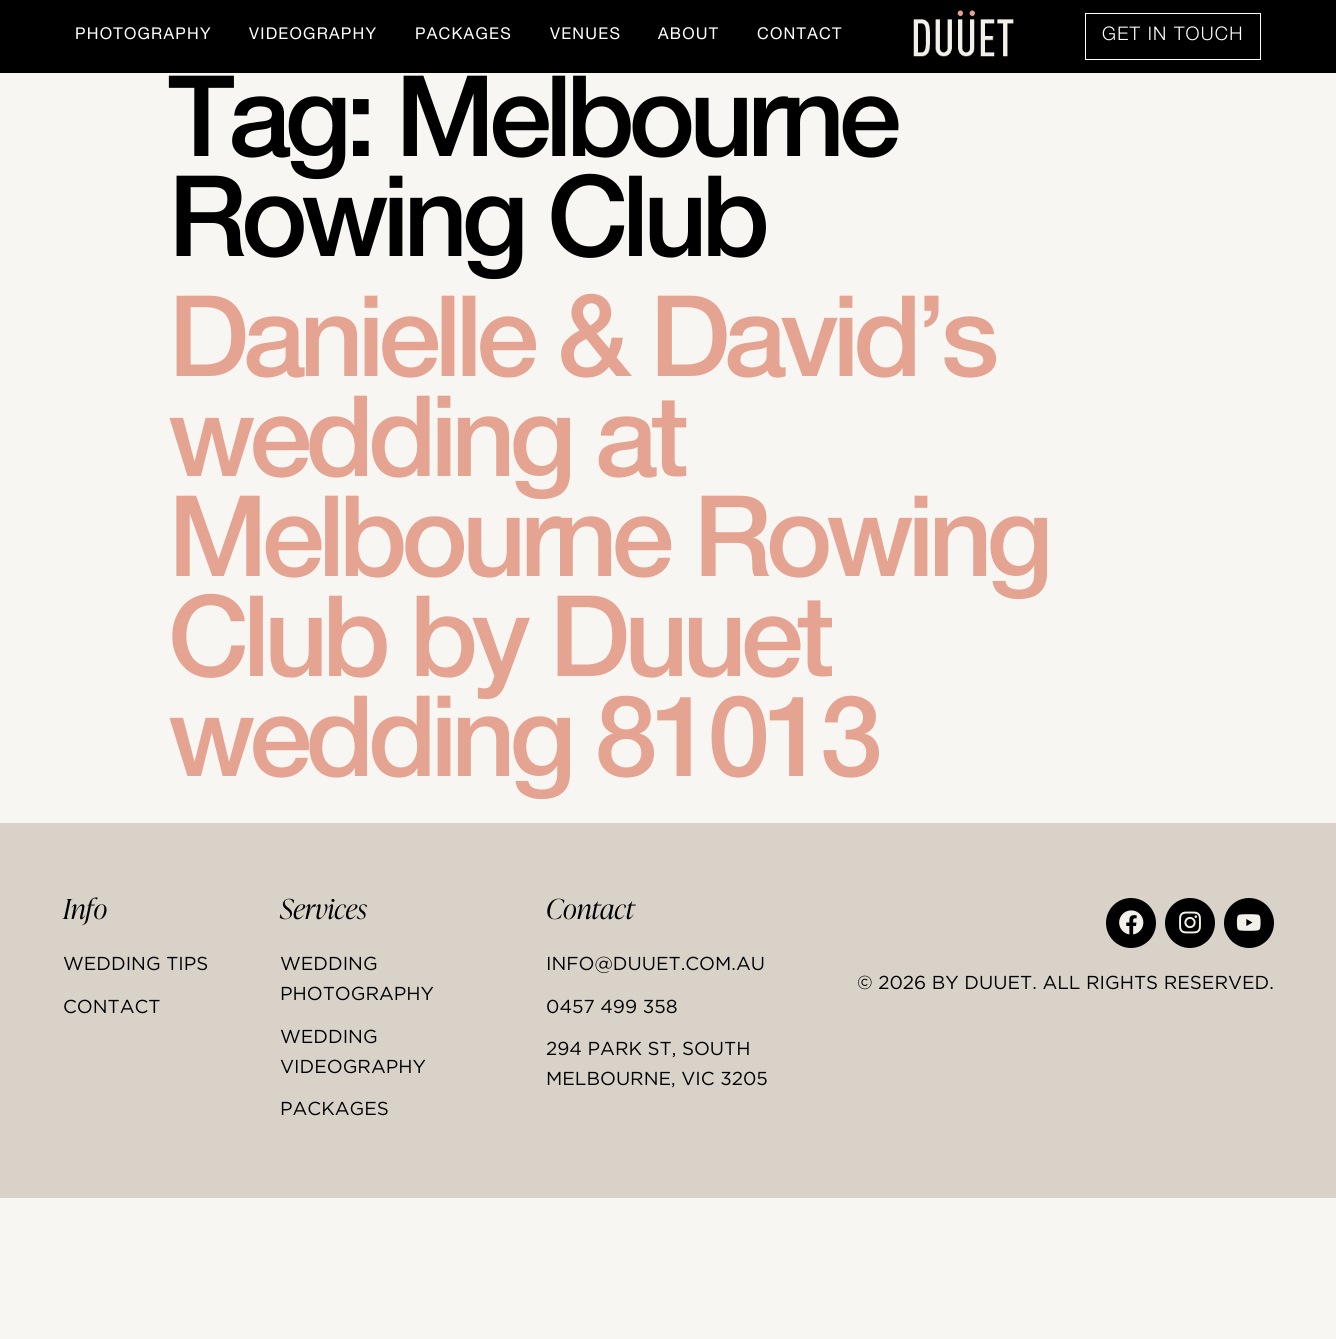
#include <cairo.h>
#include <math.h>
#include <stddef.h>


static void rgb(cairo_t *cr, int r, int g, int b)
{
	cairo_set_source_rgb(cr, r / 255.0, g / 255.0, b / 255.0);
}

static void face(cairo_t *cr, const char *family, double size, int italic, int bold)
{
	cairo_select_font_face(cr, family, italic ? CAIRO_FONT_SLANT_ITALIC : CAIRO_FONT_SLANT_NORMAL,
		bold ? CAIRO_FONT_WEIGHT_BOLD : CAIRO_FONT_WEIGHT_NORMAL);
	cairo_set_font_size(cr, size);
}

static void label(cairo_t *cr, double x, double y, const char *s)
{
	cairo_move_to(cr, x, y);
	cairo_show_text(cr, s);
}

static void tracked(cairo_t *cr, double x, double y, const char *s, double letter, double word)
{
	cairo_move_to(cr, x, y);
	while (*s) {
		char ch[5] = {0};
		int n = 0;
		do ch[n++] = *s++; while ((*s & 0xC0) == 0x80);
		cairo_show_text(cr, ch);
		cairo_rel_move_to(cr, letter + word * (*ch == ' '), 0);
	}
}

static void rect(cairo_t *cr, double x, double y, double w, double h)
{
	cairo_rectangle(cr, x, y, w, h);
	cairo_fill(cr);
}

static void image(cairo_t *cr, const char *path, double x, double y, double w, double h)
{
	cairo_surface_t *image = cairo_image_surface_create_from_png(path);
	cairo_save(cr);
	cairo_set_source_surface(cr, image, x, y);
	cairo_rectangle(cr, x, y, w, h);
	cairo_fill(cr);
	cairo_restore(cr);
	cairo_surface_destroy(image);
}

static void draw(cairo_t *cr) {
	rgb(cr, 248, 246, 242);
	cairo_paint(cr);
	rgb(cr, 0, 0, 0);
	rect(cr, 0, 0, 1336, 73);
	face(cr, "Helvetica Neue", 16.25, 0, 0);
	rgb(cr, 255, 255, 255);
	tracked(cr, 75, 39, "PHOTOGRAPHY", 1.25, 0);
	tracked(cr, 249, 39, "VIDEOGRAPHY", 1.25, 0);
	tracked(cr, 415, 39, "PACKAGES", 1.25, 0);
	tracked(cr, 550, 39, "VENUES", 1.25, 0);
	tracked(cr, 658, 39, "ABOUT", 1.25, 0);
	tracked(cr, 757, 39, "CONTACT", 1.25, 0);
	image(cr, "image0.png", 913, 10, 101, 47);
	cairo_rectangle(cr, 1085.5, 13.5, 175, 46);
	cairo_set_line_width(cr, 1);
	cairo_stroke(cr);
	face(cr, "Helvetica Neue Light", 18.75, 0, 0);
	tracked(cr, 1102, 40, "GET IN TOUCH", 1.25, 0);
	face(cr, "Helvetica Neue Medium", 112.5, 0, 0);
	rgb(cr, 0, 0, 0);
	tracked(cr, 168, 156, "Tag: Melbourne", -6.25, 0);
	tracked(cr, 168, 256, "Rowing Club", -6.25, 0);
	rgb(cr, 229, 164, 145);
	tracked(cr, 168, 376, "Danielle & David’s", -6.25, 0);
	tracked(cr, 168, 476, "wedding at", -6.25, 0);
	tracked(cr, 168, 576, "Melbourne Rowing", -6.25, 0);
	tracked(cr, 168, 676, "Club by Duuet", -6.25, 0);
	tracked(cr, 168, 776, "wedding 81013", -6.25, 0);
	rgb(cr, 216, 210, 201);
	rect(cr, 0, 823, 1336, 375);
	face(cr, "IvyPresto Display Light", 27.5, 1, 0);
	rgb(cr, 0, 0, 0);
	label(cr, 63, 919, "Info");
	face(cr, "Gotham", 18.75, 0, 0);
	label(cr, 63, 970, "WEDDING TIPS");
	label(cr, 63, 1013, "CONTACT");
	face(cr, "IvyPresto Display Light", 27.5, 1, 0);
	label(cr, 280, 919, "Services");
	face(cr, "Gotham", 18.75, 0, 0);
	label(cr, 280, 970, "WEDDING");
	label(cr, 280, 1000, "PHOTOGRAPHY");
	label(cr, 280, 1043, "WEDDING");
	label(cr, 280, 1073, "VIDEOGRAPHY");
	label(cr, 280, 1115, "PACKAGES");
	face(cr, "IvyPresto Display Light", 27.5, 1, 0);
	label(cr, 546, 919, "Contact");
	face(cr, "Gotham", 18.75, 0, 0);
	label(cr, 546, 970, "INFO@DUUET.COM.AU");
	label(cr, 546, 1013, "0457 499 358");
	label(cr, 546, 1055, "294 PARK ST, SOUTH");
	label(cr, 546, 1085, "MELBOURNE, VIC 3205");
	cairo_new_path(cr);
	cairo_arc(cr, 1131, 923, 25, 0, 2 * M_PI);
	cairo_fill(cr);
	image(cr, "image1.png", 1119, 910, 25, 25);
	cairo_arc(cr, 1190, 923, 25, 0, 2 * M_PI);
	cairo_fill(cr);
	image(cr, "image2.png", 1179, 911, 22, 23);
	cairo_arc(cr, 1249, 923, 25, 0, 2 * M_PI);
	cairo_fill(cr);
	image(cr, "image3.png", 1236, 914, 25, 17);
	label(cr, 857, 989, "© 2026 BY DUUET. ALL RIGHTS RESERVED.");
}

int main(void) {
	cairo_surface_t *surface = cairo_image_surface_create(CAIRO_FORMAT_RGB24, 1336, 1339);
	cairo_t *cr = cairo_create(surface);
	cairo_font_options_t *options = cairo_font_options_create();
	cairo_font_options_set_hint_metrics(options, CAIRO_HINT_METRICS_OFF);
	cairo_font_options_set_hint_style(options, CAIRO_HINT_STYLE_NONE);
	cairo_set_font_options(cr, options);
	cairo_set_miter_limit(cr, 4);
	draw(cr);
	cairo_surface_write_to_png(surface, "render.png");
	cairo_font_options_destroy(options);
	cairo_destroy(cr);
	cairo_surface_destroy(surface);
	return 0;
}
